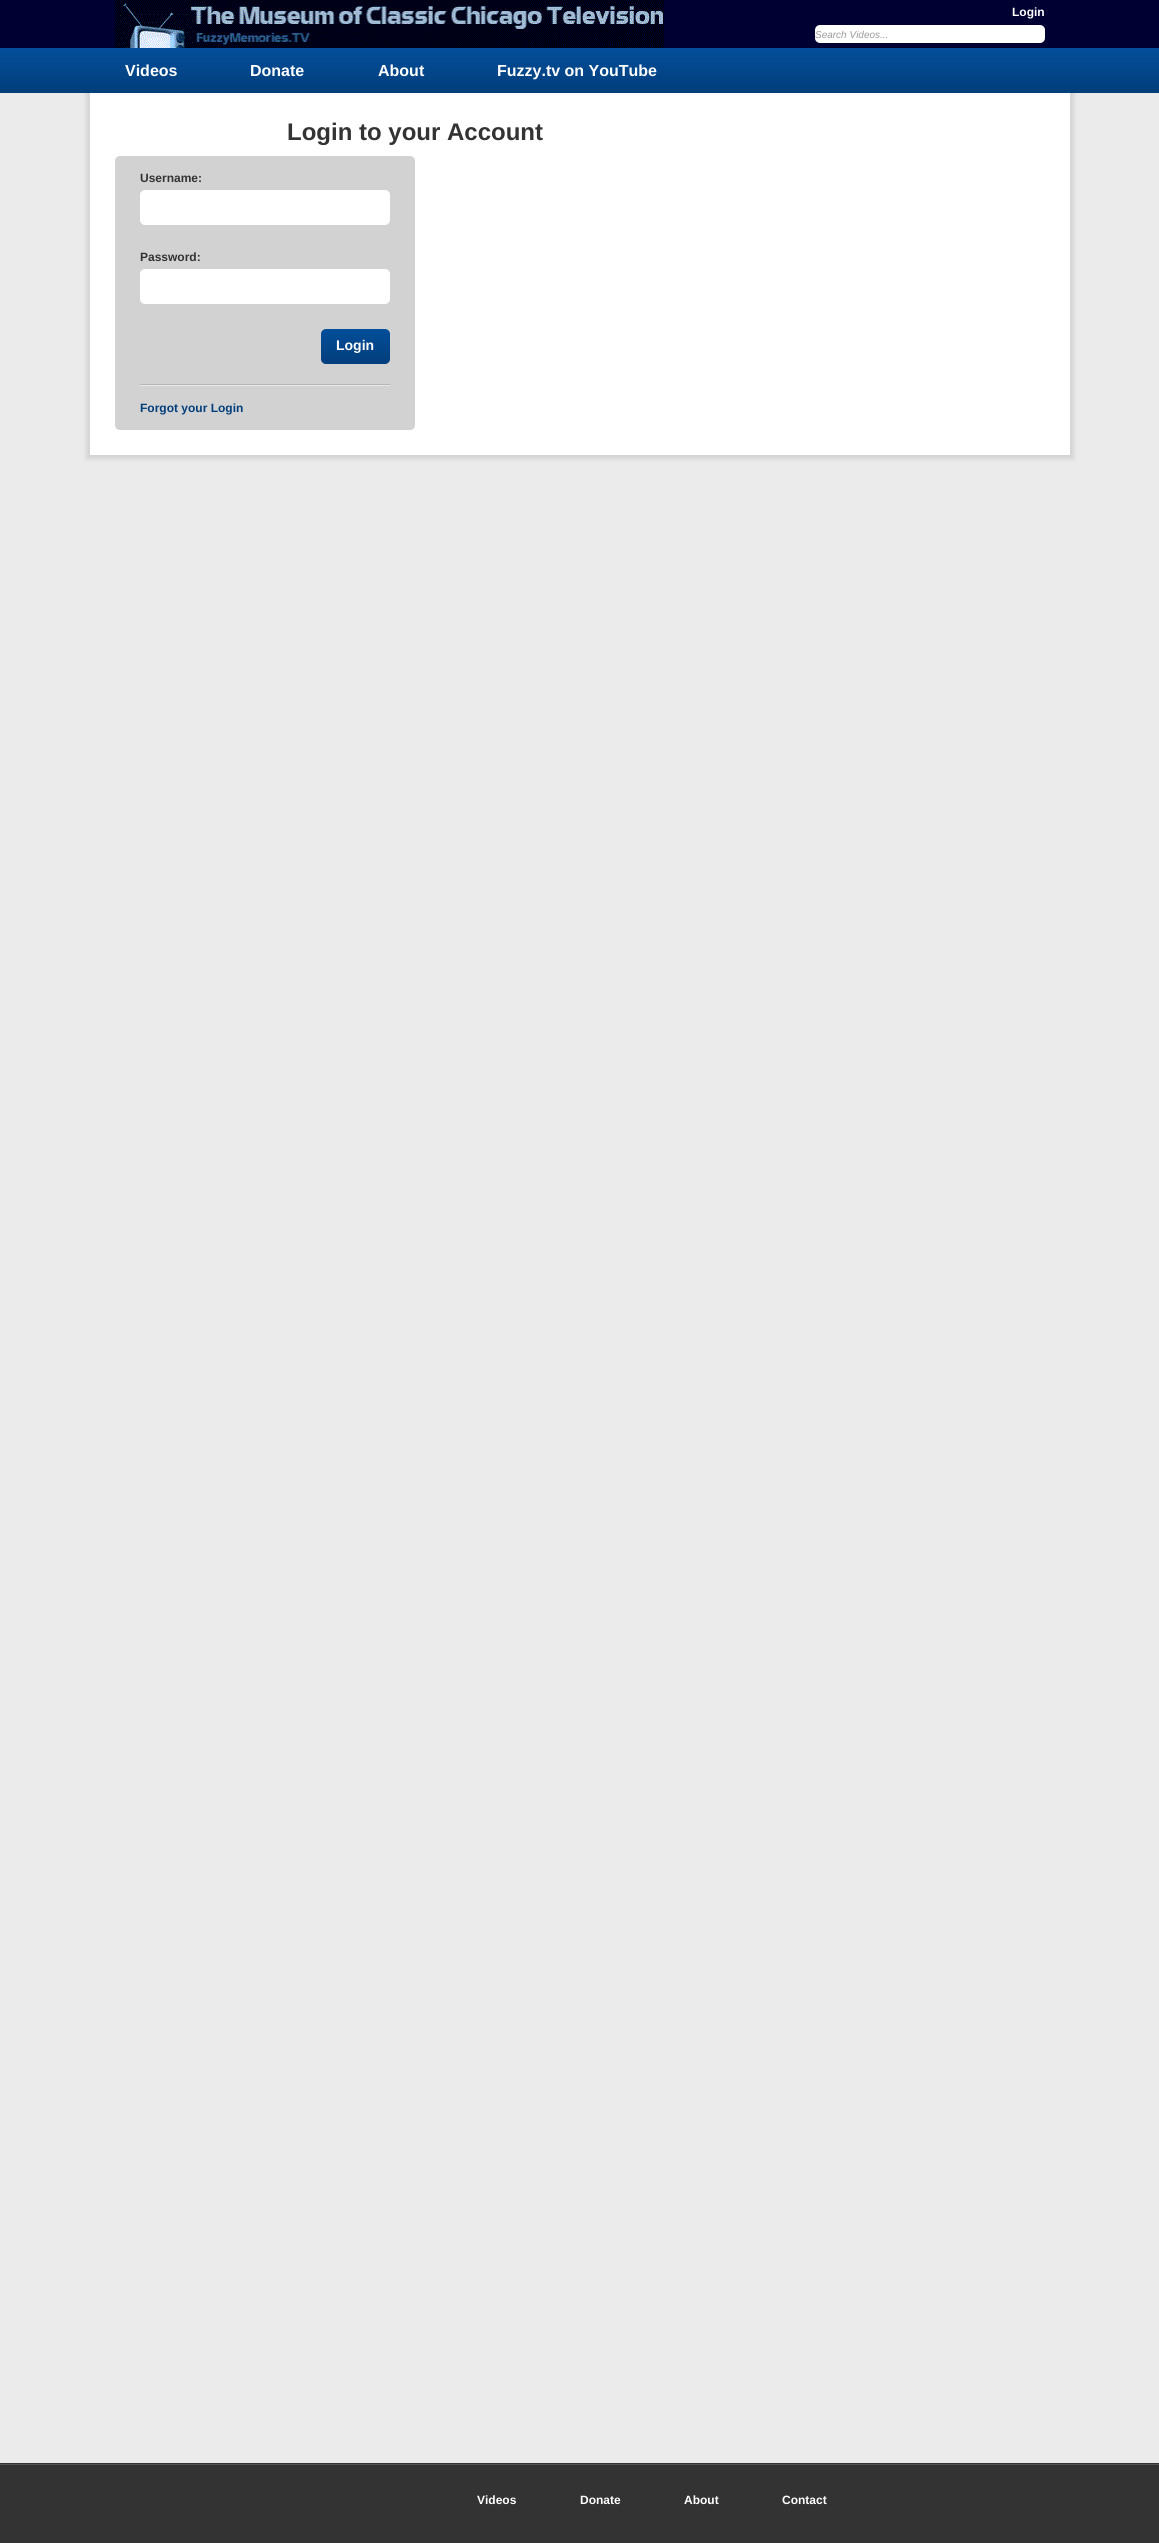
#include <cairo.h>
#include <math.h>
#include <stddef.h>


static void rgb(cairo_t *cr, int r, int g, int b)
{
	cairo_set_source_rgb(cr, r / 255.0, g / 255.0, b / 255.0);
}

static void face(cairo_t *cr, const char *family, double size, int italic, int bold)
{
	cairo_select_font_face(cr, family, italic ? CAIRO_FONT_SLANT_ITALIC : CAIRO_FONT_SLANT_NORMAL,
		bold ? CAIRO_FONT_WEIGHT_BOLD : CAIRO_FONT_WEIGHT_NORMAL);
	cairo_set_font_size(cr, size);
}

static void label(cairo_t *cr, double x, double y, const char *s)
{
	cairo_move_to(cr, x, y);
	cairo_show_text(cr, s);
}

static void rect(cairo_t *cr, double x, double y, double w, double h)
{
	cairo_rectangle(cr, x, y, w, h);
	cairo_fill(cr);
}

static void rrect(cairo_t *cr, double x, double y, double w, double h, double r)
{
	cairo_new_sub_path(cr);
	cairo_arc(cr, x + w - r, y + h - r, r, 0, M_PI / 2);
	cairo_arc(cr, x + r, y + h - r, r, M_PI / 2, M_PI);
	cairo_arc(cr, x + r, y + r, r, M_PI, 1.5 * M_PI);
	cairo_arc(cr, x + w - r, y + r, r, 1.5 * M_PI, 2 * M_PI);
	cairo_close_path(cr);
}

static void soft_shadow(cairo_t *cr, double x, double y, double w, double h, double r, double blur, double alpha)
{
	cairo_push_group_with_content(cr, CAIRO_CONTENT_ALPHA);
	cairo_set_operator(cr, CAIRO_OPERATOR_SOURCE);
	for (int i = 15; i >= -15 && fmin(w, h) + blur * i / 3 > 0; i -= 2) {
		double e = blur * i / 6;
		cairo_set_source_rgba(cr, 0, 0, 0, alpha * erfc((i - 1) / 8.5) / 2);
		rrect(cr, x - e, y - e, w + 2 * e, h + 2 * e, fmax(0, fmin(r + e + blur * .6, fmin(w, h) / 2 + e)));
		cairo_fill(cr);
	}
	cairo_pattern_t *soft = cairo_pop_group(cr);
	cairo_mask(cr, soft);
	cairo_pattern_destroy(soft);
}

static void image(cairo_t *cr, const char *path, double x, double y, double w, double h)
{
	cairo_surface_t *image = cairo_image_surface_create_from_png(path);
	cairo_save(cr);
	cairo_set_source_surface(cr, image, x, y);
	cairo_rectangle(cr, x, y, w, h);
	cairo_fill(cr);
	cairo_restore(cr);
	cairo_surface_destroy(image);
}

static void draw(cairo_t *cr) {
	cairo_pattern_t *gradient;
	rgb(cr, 235, 235, 235);
	cairo_paint(cr);
	rgb(cr, 0, 0, 51);
	rect(cr, 0, 0, 1159, 48);
	image(cr, "image0.png", 115, 0, 549, 48);
	face(cr, "Liberation Sans", 12, 0, 1);
	rgb(cr, 255, 255, 255);
	label(cr, 1012, 16, "Login");
	rrect(cr, 815, 25, 230, 18, 5);
	cairo_fill(cr);
	face(cr, "Liberation Sans", 10, 1, 0);
	rgb(cr, 153, 153, 153);
	label(cr, 815, 38, "Search Videos...");
	rgb(cr, 1, 1, 1);
	soft_shadow(cr, 86, 84, 988, 375, 0, 2, 0.1);
	gradient = cairo_pattern_create_linear(580, 48, 580, 93);
	cairo_pattern_add_color_stop_rgba(gradient, 0, 0.012, 0.306, 0.604, 1);
	cairo_pattern_add_color_stop_rgba(gradient, 1, 0.008, 0.243, 0.482, 1);
	cairo_set_source(cr, gradient);
	cairo_pattern_destroy(gradient);
	rect(cr, 0, 48, 1159, 45);
	face(cr, "Liberation Sans", 16, 0, 1);
	rgb(cr, 255, 255, 255);
	label(cr, 125, 76, "Videos");
	label(cr, 250, 76, "Donate");
	label(cr, 378, 76, "About");
	label(cr, 497, 76, "Fuzzy.tv on YouTube");
	rect(cr, 90, 93, 980, 362);
	face(cr, "Liberation Sans", 24, 0, 1);
	rgb(cr, 51, 51, 51);
	label(cr, 287, 140, "Login to your Account");
	rgb(cr, 210, 210, 210);
	rrect(cr, 115, 156, 300, 274, 5);
	cairo_fill(cr);
	rgb(cr, 183, 182, 182);
	rect(cr, 140, 384, 250, 1);
	face(cr, "Liberation Sans", 12, 0, 1);
	rgb(cr, 51, 51, 51);
	label(cr, 140, 182, "Username:");
	rgb(cr, 255, 255, 255);
	rrect(cr, 140, 190, 250, 35, 5);
	cairo_fill(cr);
	rgb(cr, 51, 51, 51);
	label(cr, 140, 261, "Password:");
	rgb(cr, 255, 255, 255);
	rrect(cr, 140, 269, 250, 35, 5);
	cairo_fill(cr);
	gradient = cairo_pattern_create_linear(356, 329, 356, 364);
	cairo_pattern_add_color_stop_rgba(gradient, 0, 0.012, 0.306, 0.604, 1);
	cairo_pattern_add_color_stop_rgba(gradient, 1, 0.008, 0.243, 0.482, 1);
	cairo_set_source(cr, gradient);
	cairo_pattern_destroy(gradient);
	rrect(cr, 321, 329, 69, 35, 5);
	cairo_fill(cr);
	face(cr, "Liberation Sans", 14, 0, 1);
	rgb(cr, 255, 255, 255);
	label(cr, 336, 350, "Login");
	rgb(cr, 233, 232, 232);
	rect(cr, 140, 385, 250, 1);
	face(cr, "Liberation Sans", 12, 0, 1);
	rgb(cr, 2, 62, 123);
	label(cr, 140, 412, "Forgot your Login");
	rgb(cr, 51, 51, 51);
	rect(cr, 0, 2463, 1159, 80);
	rgb(cr, 83, 83, 83);
	rect(cr, 0, 2464, 1159, 1);
	rgb(cr, 255, 255, 255);
	label(cr, 477, 2504, "Videos");
	label(cr, 580, 2504, "Donate");
	label(cr, 684, 2504, "About");
	label(cr, 782, 2504, "Contact");
}

int main(void) {
	cairo_surface_t *surface = cairo_image_surface_create(CAIRO_FORMAT_RGB24, 1159, 2543);
	cairo_t *cr = cairo_create(surface);
	cairo_font_options_t *options = cairo_font_options_create();
	cairo_font_options_set_hint_metrics(options, CAIRO_HINT_METRICS_OFF);
	cairo_font_options_set_hint_style(options, CAIRO_HINT_STYLE_NONE);
	cairo_set_font_options(cr, options);
	cairo_set_miter_limit(cr, 4);
	draw(cr);
	cairo_surface_write_to_png(surface, "render.png");
	cairo_font_options_destroy(options);
	cairo_destroy(cr);
	cairo_surface_destroy(surface);
	return 0;
}
